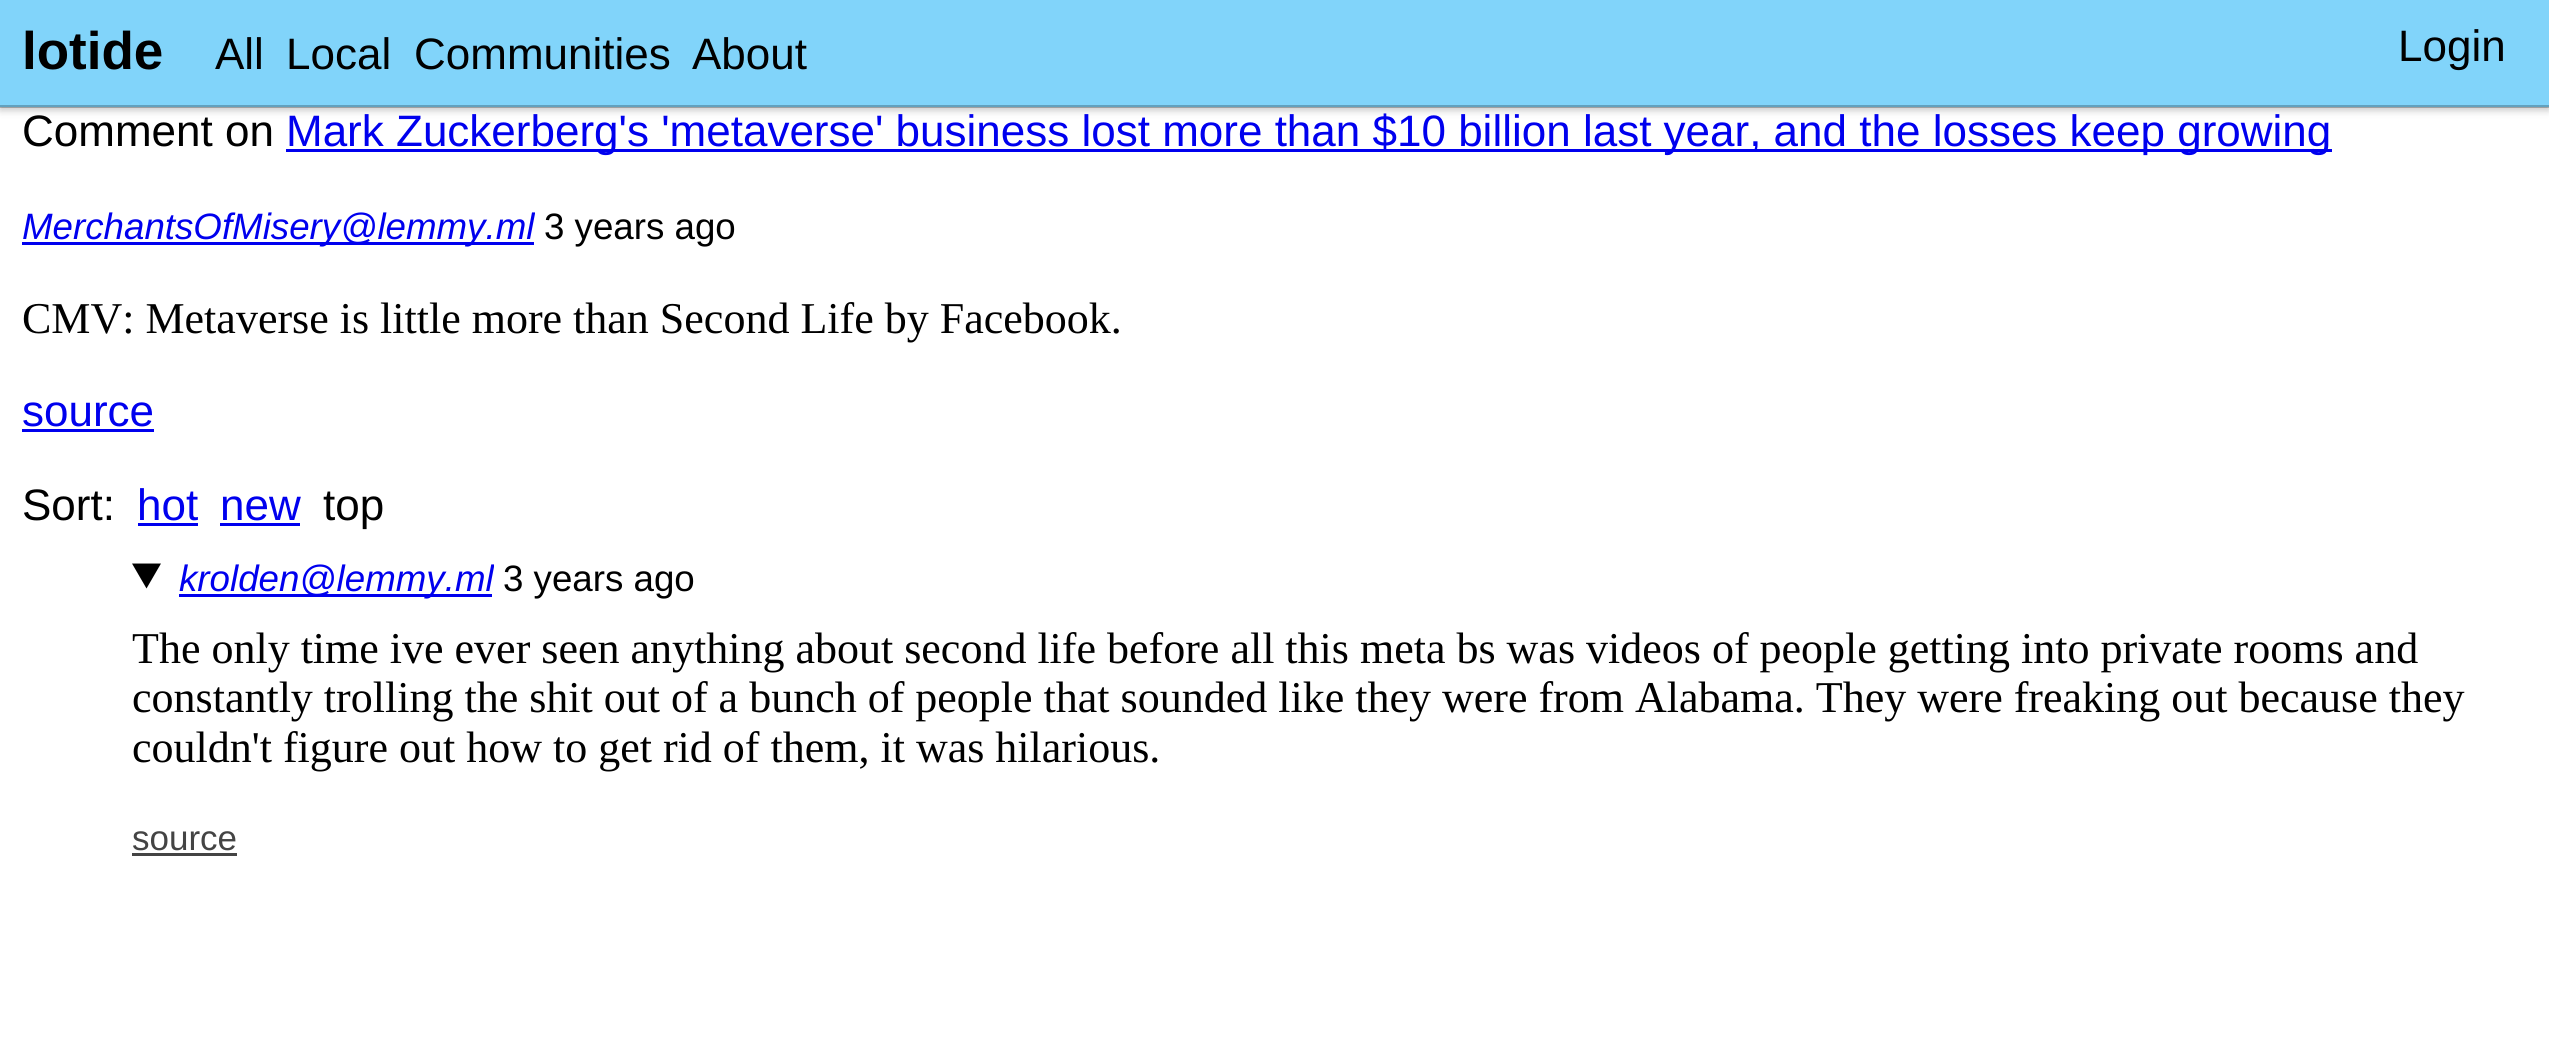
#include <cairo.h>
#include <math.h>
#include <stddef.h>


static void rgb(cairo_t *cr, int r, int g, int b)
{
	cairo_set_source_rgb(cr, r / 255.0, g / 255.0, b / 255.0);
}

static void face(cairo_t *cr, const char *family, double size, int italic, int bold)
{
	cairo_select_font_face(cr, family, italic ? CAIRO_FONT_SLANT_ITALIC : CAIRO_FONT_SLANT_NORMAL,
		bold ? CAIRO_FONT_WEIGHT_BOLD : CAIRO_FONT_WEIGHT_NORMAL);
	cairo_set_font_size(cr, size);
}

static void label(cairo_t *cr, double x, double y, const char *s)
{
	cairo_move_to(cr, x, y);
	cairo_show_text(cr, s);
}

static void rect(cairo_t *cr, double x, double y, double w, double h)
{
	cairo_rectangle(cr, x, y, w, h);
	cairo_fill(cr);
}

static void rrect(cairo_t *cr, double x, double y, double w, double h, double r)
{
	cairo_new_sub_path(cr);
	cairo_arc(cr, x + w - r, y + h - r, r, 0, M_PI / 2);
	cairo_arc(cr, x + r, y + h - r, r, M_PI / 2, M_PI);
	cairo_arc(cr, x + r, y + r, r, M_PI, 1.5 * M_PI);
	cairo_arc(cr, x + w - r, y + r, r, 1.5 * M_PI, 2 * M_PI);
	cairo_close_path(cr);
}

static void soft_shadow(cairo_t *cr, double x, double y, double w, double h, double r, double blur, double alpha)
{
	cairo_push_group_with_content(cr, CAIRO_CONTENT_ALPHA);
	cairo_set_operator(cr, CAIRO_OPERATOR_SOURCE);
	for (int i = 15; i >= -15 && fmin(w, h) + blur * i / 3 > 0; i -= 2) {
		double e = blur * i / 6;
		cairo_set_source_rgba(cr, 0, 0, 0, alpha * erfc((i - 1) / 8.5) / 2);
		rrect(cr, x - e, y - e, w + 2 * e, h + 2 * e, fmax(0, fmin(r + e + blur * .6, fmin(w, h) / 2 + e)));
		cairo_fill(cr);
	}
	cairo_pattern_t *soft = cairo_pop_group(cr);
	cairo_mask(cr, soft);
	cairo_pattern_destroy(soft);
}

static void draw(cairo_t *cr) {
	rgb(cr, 255, 255, 255);
	cairo_paint(cr);
	rgb(cr, 0, 0, 0);
	soft_shadow(cr, 0, 3, 2549, 107, 0, 4, 0.24);
	rgb(cr, 129, 212, 250);
	rect(cr, 0, 0, 2549, 107);
	cairo_set_source_rgba(cr, 0, 0, 0, 0.24);
	rect(cr, 0, 105, 2549, 3);
	face(cr, "Liberation Sans", 53, 0, 1);
	rgb(cr, 0, 0, 0);
	label(cr, 22, 69, "lotide");
	face(cr, "Liberation Sans", 44, 0, 0);
	label(cr, 215, 69, "All");
	label(cr, 286, 69, "Local");
	label(cr, 414, 69, "Communities");
	label(cr, 692, 69, "About");
	label(cr, 2398, 61, "Login");
	label(cr, 22, 146, "Comment on");
	rgb(cr, 0, 0, 238);
	rect(cr, 286, 149, 2046, 3);
	label(cr, 286, 146, "Mark Zuckerberg's 'metaverse' business lost more than $10 billion last year, and the losses keep growing");
	rect(cr, 22, 242, 512, 3);
	face(cr, "Liberation Sans", 36.7, 1, 0);
	label(cr, 22, 239, "MerchantsOfMisery@lemmy.ml");
	face(cr, "Liberation Sans", 36.7, 0, 0);
	rgb(cr, 0, 0, 0);
	label(cr, 544, 239, "3 years ago");
	face(cr, "Liberation Serif", 44, 0, 0);
	label(cr, 22, 333, "CMV: Metaverse is little more than Second Life by Facebook.");
	face(cr, "Liberation Sans", 44, 0, 0);
	rgb(cr, 0, 0, 238);
	label(cr, 22, 426, "source");
	rect(cr, 22, 429, 132, 3);
	rgb(cr, 0, 0, 0);
	label(cr, 22, 520, "Sort:");
	rgb(cr, 0, 0, 238);
	label(cr, 137, 520, "hot");
	rect(cr, 138, 523, 60, 3);
	label(cr, 220, 520, "new");
	rect(cr, 220, 523, 80, 3);
	rgb(cr, 0, 0, 0);
	label(cr, 323, 520, "top");
	cairo_new_path(cr);
	cairo_move_to(cr, 132, 563.5);
	cairo_line_to(cr, 161, 563.5);
	cairo_line_to(cr, 146.5, 588.5);
	cairo_close_path(cr);
	cairo_fill(cr);
	rgb(cr, 0, 0, 238);
	rect(cr, 179, 594, 313, 3);
	face(cr, "Liberation Sans", 36.7, 1, 0);
	label(cr, 179, 591, "krolden@lemmy.ml");
	face(cr, "Liberation Sans", 36.7, 0, 0);
	rgb(cr, 0, 0, 0);
	label(cr, 503, 591, "3 years ago");
	face(cr, "Liberation Serif", 44, 0, 0);
	label(cr, 132, 663, "The only time ive ever seen anything about second life before all this meta bs was videos of people getting into private rooms and");
	label(cr, 132, 712, "constantly trolling the shit out of a bunch of people that sounded like they were from Alabama. They were freaking out because they");
	label(cr, 132, 762, "couldn't figure out how to get rid of them, it was hilarious.");
	face(cr, "Liberation Sans", 35, 0, 0);
	rgb(cr, 68, 68, 68);
	label(cr, 132, 850, "source");
	rect(cr, 132, 853, 105, 3);
}

int main(void) {
	cairo_surface_t *surface = cairo_image_surface_create(CAIRO_FORMAT_RGB24, 2549, 1045);
	cairo_t *cr = cairo_create(surface);
	cairo_font_options_t *options = cairo_font_options_create();
	cairo_font_options_set_hint_metrics(options, CAIRO_HINT_METRICS_OFF);
	cairo_font_options_set_hint_style(options, CAIRO_HINT_STYLE_NONE);
	cairo_set_font_options(cr, options);
	cairo_set_miter_limit(cr, 4);
	draw(cr);
	cairo_surface_write_to_png(surface, "render.png");
	cairo_font_options_destroy(options);
	cairo_destroy(cr);
	cairo_surface_destroy(surface);
	return 0;
}
